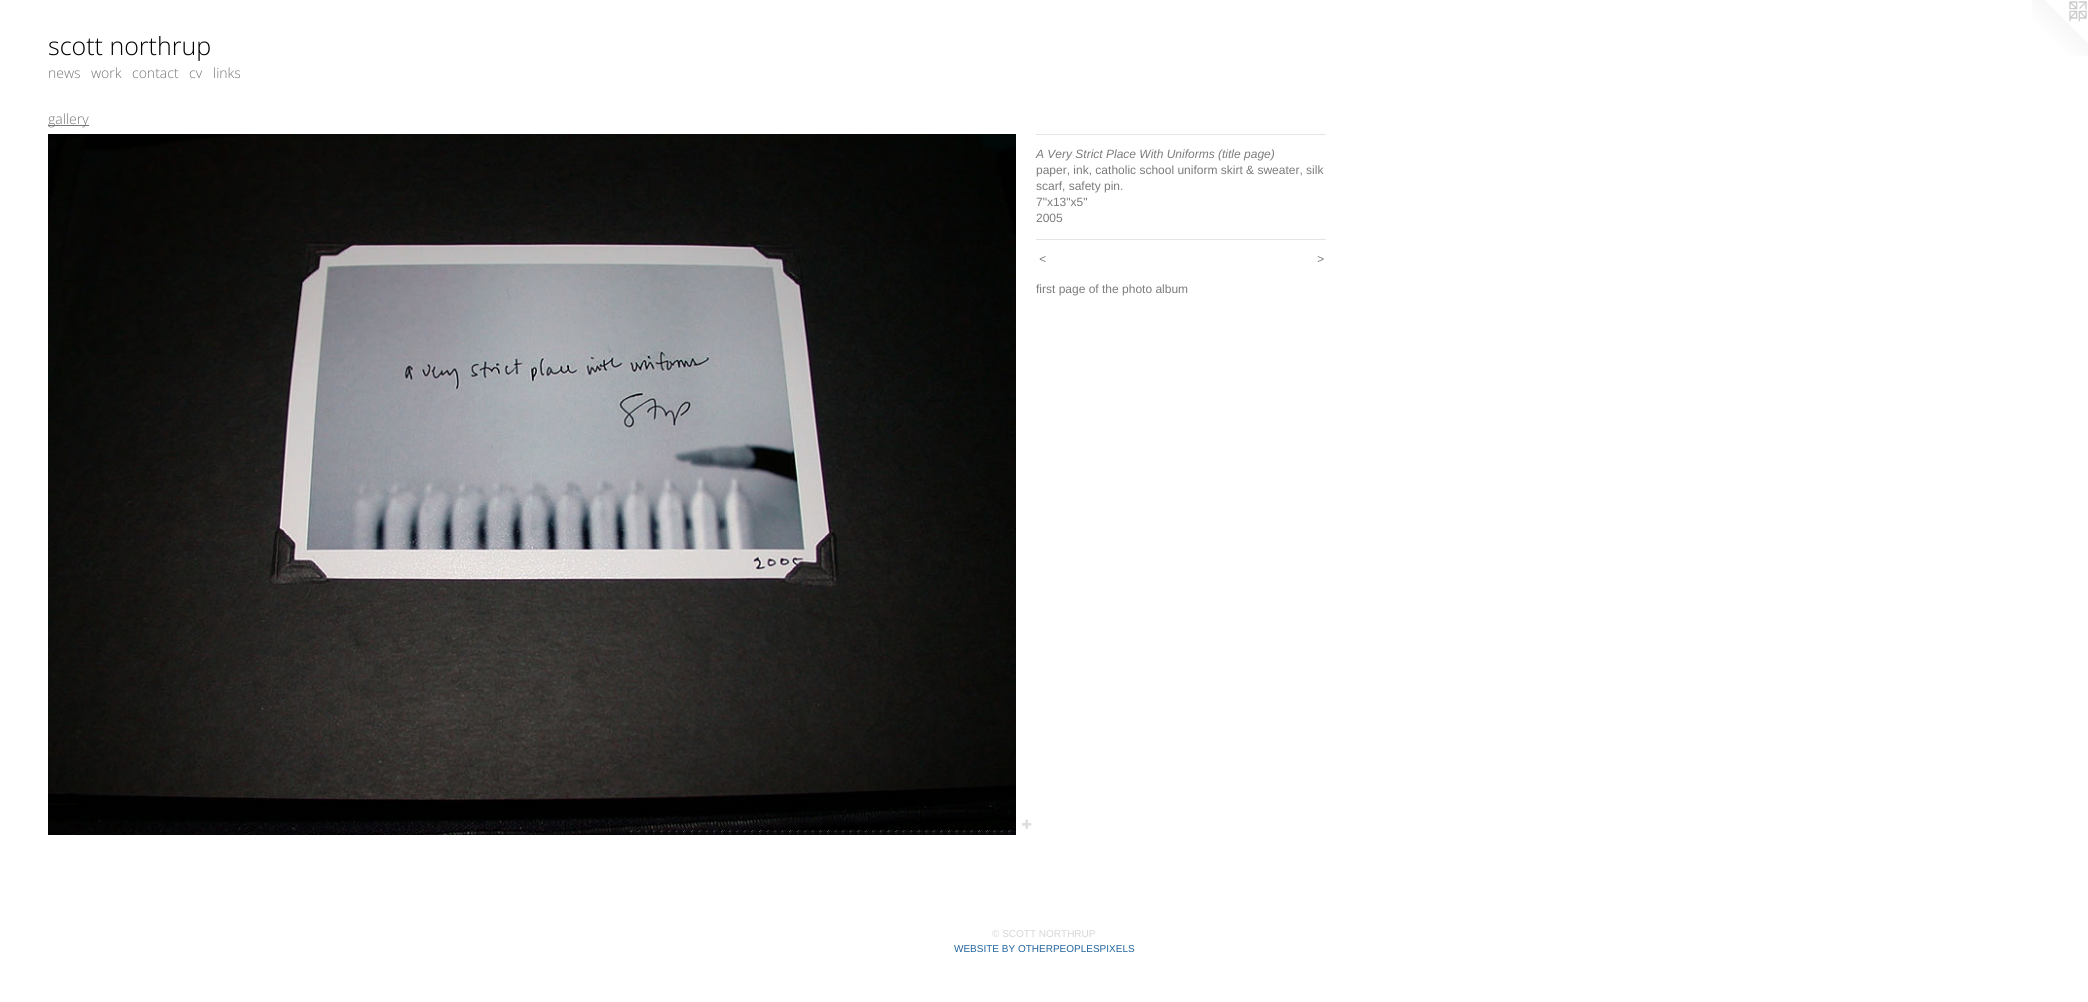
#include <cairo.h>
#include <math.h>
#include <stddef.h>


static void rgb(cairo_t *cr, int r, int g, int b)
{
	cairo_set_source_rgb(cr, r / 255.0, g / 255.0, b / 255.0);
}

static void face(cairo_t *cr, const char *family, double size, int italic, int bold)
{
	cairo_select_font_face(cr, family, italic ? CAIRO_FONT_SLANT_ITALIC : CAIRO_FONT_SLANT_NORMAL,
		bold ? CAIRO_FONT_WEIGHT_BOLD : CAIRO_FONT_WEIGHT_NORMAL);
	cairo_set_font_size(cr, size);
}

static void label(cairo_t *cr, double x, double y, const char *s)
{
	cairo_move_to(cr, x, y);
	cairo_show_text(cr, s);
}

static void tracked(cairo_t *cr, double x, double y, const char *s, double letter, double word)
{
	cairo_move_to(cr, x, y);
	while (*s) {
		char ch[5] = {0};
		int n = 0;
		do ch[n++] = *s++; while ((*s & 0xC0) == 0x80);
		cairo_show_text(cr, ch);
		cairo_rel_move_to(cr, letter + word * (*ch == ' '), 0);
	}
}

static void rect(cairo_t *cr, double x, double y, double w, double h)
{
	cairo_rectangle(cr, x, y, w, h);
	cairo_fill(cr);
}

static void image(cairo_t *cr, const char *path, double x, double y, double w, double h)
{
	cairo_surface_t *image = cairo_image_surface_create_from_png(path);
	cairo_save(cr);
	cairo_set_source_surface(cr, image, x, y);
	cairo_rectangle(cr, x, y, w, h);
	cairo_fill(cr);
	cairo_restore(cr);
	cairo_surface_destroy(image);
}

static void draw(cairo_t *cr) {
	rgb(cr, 255, 255, 255);
	cairo_paint(cr);
	face(cr, "Open Sans Light", 25, 0, 0);
	rgb(cr, 0, 0, 0);
	label(cr, 48, 55, "scott northrup");
	image(cr, "image0.png", 2032, 0, 56, 56);
	face(cr, "Open Sans Light", 14, 0, 0);
	rgb(cr, 117, 117, 117);
	label(cr, 48, 78, "news");
	label(cr, 91, 78, "work");
	label(cr, 132, 78, "contact");
	label(cr, 189, 78, "cv");
	label(cr, 213, 78, "links");
	rect(cr, 48, 125, 41, 1);
	label(cr, 48, 124, "gallery");
	image(cr, "image1.png", 48, 134, 968, 701);
	image(cr, "image2.png", 1022, 819, 10, 10);
	rgb(cr, 229, 229, 229);
	rect(cr, 1036, 134, 290, 1);
	face(cr, "Liberation Sans", 12, 1, 0);
	rgb(cr, 123, 123, 123);
	label(cr, 1036, 158, "A Very Strict Place With Uniforms (title page)");
	face(cr, "Liberation Sans", 12, 0, 0);
	label(cr, 1036, 174, "paper, ink, catholic school uniform skirt & sweater, silk");
	label(cr, 1036, 190, "scarf, safety pin.");
	label(cr, 1036, 206, "7\"x13\"x5\"");
	label(cr, 1036, 222, "2005");
	rgb(cr, 229, 229, 229);
	rect(cr, 1036, 239, 290, 1);
	face(cr, "Liberation Sans", 12, 1, 0);
	rgb(cr, 123, 123, 123);
	tracked(cr, 1039, 263, "<", 1, 0);
	tracked(cr, 1317, 263, ">", 1, 0);
	face(cr, "Liberation Sans", 12, 0, 0);
	label(cr, 1036, 293, "first page of the photo album");
	face(cr, "Liberation Sans", 10, 0, 0);
	rgb(cr, 214, 214, 214);
	label(cr, 992, 937, "© SCOTT NORTHRUP");
	rgb(cr, 32, 100, 158);
	label(cr, 954, 952, "WEBSITE BY OTHERPEOPLESPIXELS");
}

int main(void) {
	cairo_surface_t *surface = cairo_image_surface_create(CAIRO_FORMAT_RGB24, 2088, 1002);
	cairo_t *cr = cairo_create(surface);
	cairo_font_options_t *options = cairo_font_options_create();
	cairo_font_options_set_hint_metrics(options, CAIRO_HINT_METRICS_OFF);
	cairo_font_options_set_hint_style(options, CAIRO_HINT_STYLE_NONE);
	cairo_set_font_options(cr, options);
	cairo_set_miter_limit(cr, 4);
	draw(cr);
	cairo_surface_write_to_png(surface, "render.png");
	cairo_font_options_destroy(options);
	cairo_destroy(cr);
	cairo_surface_destroy(surface);
	return 0;
}
